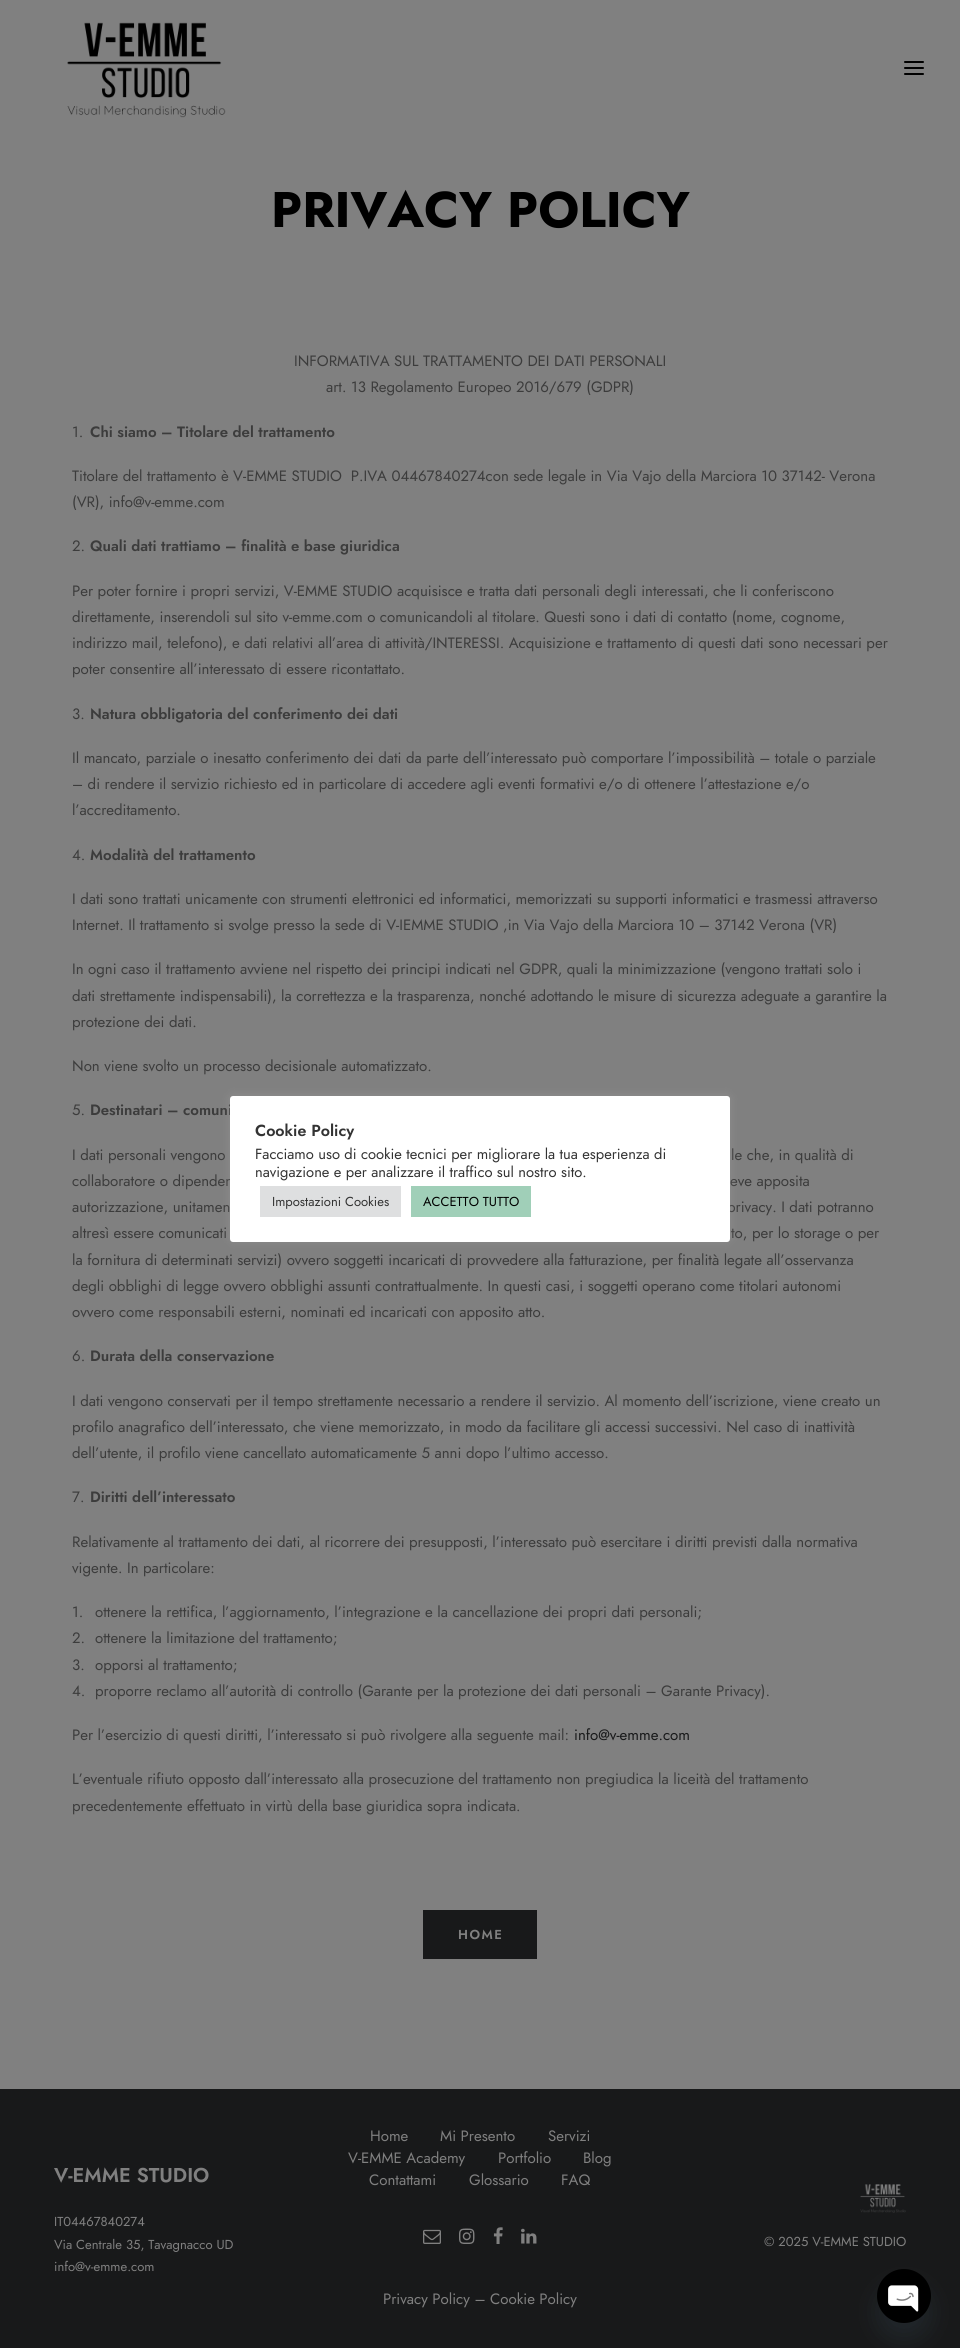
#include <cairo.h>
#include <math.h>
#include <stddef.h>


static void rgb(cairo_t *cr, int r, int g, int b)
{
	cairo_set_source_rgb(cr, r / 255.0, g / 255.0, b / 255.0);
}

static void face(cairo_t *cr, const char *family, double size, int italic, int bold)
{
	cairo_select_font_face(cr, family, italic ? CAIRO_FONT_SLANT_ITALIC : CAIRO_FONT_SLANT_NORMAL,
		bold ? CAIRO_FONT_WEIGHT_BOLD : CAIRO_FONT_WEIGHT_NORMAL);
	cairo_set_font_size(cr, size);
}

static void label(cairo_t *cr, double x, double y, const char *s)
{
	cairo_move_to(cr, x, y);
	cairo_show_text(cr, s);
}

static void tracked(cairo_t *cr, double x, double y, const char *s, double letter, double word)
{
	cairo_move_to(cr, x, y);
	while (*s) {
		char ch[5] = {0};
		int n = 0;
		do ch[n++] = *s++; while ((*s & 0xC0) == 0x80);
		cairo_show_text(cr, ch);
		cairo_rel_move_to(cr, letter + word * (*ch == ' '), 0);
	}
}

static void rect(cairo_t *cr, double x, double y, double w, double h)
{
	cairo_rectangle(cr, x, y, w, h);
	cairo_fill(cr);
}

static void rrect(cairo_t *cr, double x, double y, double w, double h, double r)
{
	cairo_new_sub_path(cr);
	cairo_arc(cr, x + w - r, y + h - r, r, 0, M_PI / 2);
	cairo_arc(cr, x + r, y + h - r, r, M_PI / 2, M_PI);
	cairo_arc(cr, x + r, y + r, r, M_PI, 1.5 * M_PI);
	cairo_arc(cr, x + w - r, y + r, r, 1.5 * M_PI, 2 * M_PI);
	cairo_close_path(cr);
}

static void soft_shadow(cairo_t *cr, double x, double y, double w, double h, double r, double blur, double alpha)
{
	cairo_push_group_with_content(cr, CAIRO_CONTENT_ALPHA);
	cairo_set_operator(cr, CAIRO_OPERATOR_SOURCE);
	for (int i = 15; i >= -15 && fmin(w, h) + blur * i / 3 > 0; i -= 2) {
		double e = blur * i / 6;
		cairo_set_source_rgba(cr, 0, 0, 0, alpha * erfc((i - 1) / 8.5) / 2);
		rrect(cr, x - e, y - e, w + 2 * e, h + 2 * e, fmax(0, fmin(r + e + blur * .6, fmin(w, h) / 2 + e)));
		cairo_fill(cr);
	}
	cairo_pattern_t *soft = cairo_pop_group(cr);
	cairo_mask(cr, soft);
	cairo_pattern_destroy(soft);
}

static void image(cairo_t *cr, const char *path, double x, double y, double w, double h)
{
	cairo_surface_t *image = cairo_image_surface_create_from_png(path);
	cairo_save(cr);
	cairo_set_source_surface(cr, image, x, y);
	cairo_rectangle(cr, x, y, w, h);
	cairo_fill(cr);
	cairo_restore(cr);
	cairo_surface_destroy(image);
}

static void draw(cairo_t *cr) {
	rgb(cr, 128, 128, 128);
	cairo_paint(cr);
	image(cr, "image0.png", 67, 22, 159, 96);
	rgb(cr, 0, 0, 0);
	rrect(cr, 904, 67, 20, 2, 1);
	cairo_fill(cr);
	rrect(cr, 904, 61, 20, 2, 1);
	cairo_fill(cr);
	rrect(cr, 904, 73, 20, 2, 1);
	cairo_fill(cr);
	face(cr, "Jost", 50, 0, 1);
	label(cr, 271, 227, "PRIVACY POLICY");
	face(cr, "Jost", 15, 0, 0);
	rgb(cr, 60, 60, 60);
	label(cr, 294, 366, "INFORMATIVA SUL TRATTAMENTO DEI DATI PERSONALI");
	label(cr, 326, 392, "art. 13 Regolamento Europeo 2016/679 (GDPR)");
	label(cr, 72, 437, "1.");
	face(cr, "Jost SemiBold", 15, 0, 0);
	label(cr, 90, 437, "Chi siamo – Titolare del trattamento");
	face(cr, "Jost", 15, 0, 0);
	label(cr, 72, 481, "Titolare del trattamento è V-EMME STUDIO  P.IVA 04467840274con sede legale in Via Vajo della Marciora 10 37142- Verona");
	label(cr, 72, 507, "(VR), info@v-emme.com");
	label(cr, 72, 551, "2.");
	face(cr, "Jost SemiBold", 15, 0, 0);
	label(cr, 90, 551, "Quali dati trattiamo – finalità e base giuridica");
	face(cr, "Jost", 15, 0, 0);
	label(cr, 72, 596, "Per poter fornire i propri servizi, V-EMME STUDIO acquisisce e tratta dati personali degli interessati, che li conferiscono");
	label(cr, 72, 622, "direttamente, inserendoli sul sito v-emme.com o comunicandoli al titolare. Questi sono i dati di contatto (nome, cognome,");
	label(cr, 72, 648, "indirizzo mail, telefono), e dati relativi all’area di attività/INTERESSI. Acquisizione e trattamento di questi dati sono necessari per");
	label(cr, 72, 674, "poter consentire all’interessato di essere ricontattato.");
	label(cr, 72, 719, "3.");
	face(cr, "Jost SemiBold", 15, 0, 0);
	label(cr, 90, 719, "Natura obbligatoria del conferimento dei dati");
	face(cr, "Jost", 15, 0, 0);
	label(cr, 72, 763, "Il mancato, parziale o inesatto conferimento dei dati da parte dell’interessato può comportare l’impossibilità – totale o parziale");
	label(cr, 72, 789, "– di rendere il servizio richiesto ed in particolare di accedere agli eventi formativi e/o di ottenere l’attestazione e/o");
	label(cr, 72, 815, "l’accreditamento.");
	label(cr, 72, 860, "4.");
	face(cr, "Jost SemiBold", 15, 0, 0);
	label(cr, 90, 860, "Modalità del trattamento");
	face(cr, "Jost", 15, 0, 0);
	label(cr, 72, 904, "I dati sono trattati unicamente con strumenti elettronici ed informatici, memorizzati su supporti informatici e trasmessi attraverso");
	label(cr, 72, 930, "Internet. Il trattamento si svolge presso la sede di V-IEMME STUDIO ,in Via Vajo della Marciora 10 – 37142 Verona (VR)");
	label(cr, 72, 974, "In ogni caso il trattamento avviene nel rispetto dei principi indicati nel GDPR, quali la minimizzazione (vengono trattati solo i");
	label(cr, 72, 1001, "dati strettamente indispensabili), la correttezza e la trasparenza, nonché adottando le misure di sicurezza adeguate a garantire la");
	label(cr, 72, 1027, "protezione dei dati.");
	label(cr, 72, 1071, "Non viene svolto un processo decisionale automatizzato.");
	label(cr, 72, 1115, "5.");
	face(cr, "Jost SemiBold", 15, 0, 0);
	label(cr, 90, 1115, "Destinatari – comuni");
	face(cr, "Jost", 15, 0, 0);
	label(cr, 72, 1160, "I dati personali vengono");
	label(cr, 731, 1160, "le che, in qualità di");
	label(cr, 72, 1186, "collaboratore o dipenden");
	label(cr, 730, 1186, "eve apposita");
	label(cr, 72, 1212, "autorizzazione, unitamen");
	label(cr, 727, 1212, "privacy. I dati potranno");
	label(cr, 72, 1238, "altresì essere comunicati");
	label(cr, 731, 1238, "to, per lo storage o per");
	label(cr, 72, 1265, "la fornitura di determinati servizi) ovvero soggetti incaricati di provvedere alla fatturazione, per finalità legate all’osservanza");
	label(cr, 72, 1291, "degli obblighi di legge ovvero obblighi assunti contrattualmente. In questi casi, i soggetti operano come titolari autonomi");
	label(cr, 72, 1317, "ovvero come responsabili esterni, nominati ed incaricati con apposito atto.");
	label(cr, 72, 1361, "6.");
	face(cr, "Jost SemiBold", 15, 0, 0);
	label(cr, 90, 1361, "Durata della conservazione");
	face(cr, "Jost", 15, 0, 0);
	label(cr, 72, 1406, "I dati vengono conservati per il tempo strettamente necessario a rendere il servizio. Al momento dell’iscrizione, viene creato un");
	label(cr, 72, 1432, "profilo anagrafico dell’interessato, che viene memorizzato, in modo da facilitare gli accessi successivi. Nel caso di inattività");
	label(cr, 72, 1458, "dell’utente, il profilo viene cancellato automaticamente 5 anni dopo l’ultimo accesso.");
	label(cr, 72, 1502, "7.");
	face(cr, "Jost SemiBold", 15, 0, 0);
	label(cr, 90, 1502, "Diritti dell’interessato");
	face(cr, "Jost", 15, 0, 0);
	label(cr, 72, 1547, "Relativamente al trattamento dei dati, al ricorrere dei presupposti, l’interessato può esercitare i diritti previsti dalla normativa");
	label(cr, 72, 1573, "vigente. In particolare:");
	label(cr, 72, 1617, "1.");
	label(cr, 95, 1617, "ottenere la rettifica, l’aggiornamento, l’integrazione e la cancellazione dei propri dati personali;");
	label(cr, 72, 1643, "2.");
	label(cr, 95, 1643, "ottenere la limitazione del trattamento;");
	label(cr, 72, 1670, "3.");
	label(cr, 95, 1670, "opporsi al trattamento;");
	label(cr, 72, 1696, "4.");
	label(cr, 95, 1696, "proporre reclamo all’autorità di controllo (Garante per la protezione dei dati personali – Garante Privacy).");
	label(cr, 72, 1740, "Per l’esercizio di questi diritti, l’interessato si può rivolgere alla seguente mail:");
	rgb(cr, 24, 25, 26);
	label(cr, 574, 1740, "info@v-emme.com");
	rgb(cr, 60, 60, 60);
	label(cr, 72, 1784, "L’eventuale rifiuto opposto dall’interessato alla prosecuzione del trattamento non pregiudica la liceità del trattamento");
	label(cr, 72, 1811, "precedentemente effettuato in virtù della base giuridica sopra indicata.");
	rgb(cr, 24, 25, 26);
	rect(cr, 423, 1910, 114, 49);
	face(cr, "Jost SemiBold", 13, 0, 0);
	rgb(cr, 128, 128, 128);
	tracked(cr, 458, 1939, "HOME", 1.5, 0);
	rgb(cr, 24, 25, 26);
	rect(cr, 0, 2089, 960, 259);
	face(cr, "Jost SemiBold", 20, 0, 0);
	rgb(cr, 128, 128, 128);
	label(cr, 54, 2182, "V-EMME STUDIO");
	face(cr, "Jost", 13, 0, 0);
	label(cr, 54, 2226, "IT04467840274");
	label(cr, 54, 2249, "Via Centrale 35, Tavagnacco UD");
	label(cr, 54, 2271, "info@v-emme.com");
	face(cr, "Jost", 15, 0, 0);
	label(cr, 370, 2141, "Home");
	label(cr, 440, 2141, "Mi Presento");
	label(cr, 548, 2141, "Servizi");
	label(cr, 348, 2163, "V-EMME Academy");
	label(cr, 498, 2163, "Portfolio");
	label(cr, 583, 2163, "Blog");
	label(cr, 369, 2185, "Contattami");
	label(cr, 469, 2185, "Glossario");
	label(cr, 561, 2185, "FAQ");
	image(cr, "image1.png", 423, 2229, 18, 15);
	image(cr, "image2.png", 459, 2228, 16, 16);
	image(cr, "image3.png", 493, 2227, 10, 17);
	image(cr, "image4.png", 521, 2228, 16, 16);
	label(cr, 383, 2304, "Privacy Policy – Cookie Policy");
	image(cr, "image5.png", 860, 2184, 46, 29);
	face(cr, "Jost", 13, 0, 0);
	label(cr, 764, 2246, "© 2025 V-EMME STUDIO");
	rgb(cr, 172, 171, 171);
	soft_shadow(cr, 230, 1095, 500, 146, 3, 5, 0.3);
	rgb(cr, 255, 255, 255);
	rrect(cr, 230, 1096, 500, 146, 3);
	cairo_fill(cr);
	face(cr, "Jost SemiBold", 16, 0, 0);
	rgb(cr, 51, 51, 51);
	label(cr, 255, 1136, "Cookie Policy");
	face(cr, "Jost", 14.7, 0, 0);
	label(cr, 255, 1159, "Facciamo uso di cookie tecnici per migliorare la tua esperienza di");
	label(cr, 255, 1177, "navigazione e per analizzare il traffico sul nostro sito.");
	rgb(cr, 222, 223, 224);
	rect(cr, 260, 1186, 141, 31);
	face(cr, "Jost", 13, 0, 0);
	rgb(cr, 51, 51, 51);
	label(cr, 272, 1206, "Impostazioni Cookies");
	rgb(cr, 160, 207, 184);
	rect(cr, 411, 1186, 120, 31);
	rgb(cr, 0, 0, 0);
	label(cr, 423, 1206, "ACCETTO TUTTO");
	rgb(cr, 73, 104, 126);
	soft_shadow(cr, 877, 2285, 54, 54, 27, 12, 0.16);
	rgb(cr, 0, 0, 0);
	cairo_arc(cr, 904, 2296, 27, 0, 2 * M_PI);
	cairo_fill(cr);
	image(cr, "image6.png", 888, 2285, 31, 27);
}

int main(void) {
	cairo_surface_t *surface = cairo_image_surface_create(CAIRO_FORMAT_RGB24, 960, 2348);
	cairo_t *cr = cairo_create(surface);
	cairo_font_options_t *options = cairo_font_options_create();
	cairo_font_options_set_hint_metrics(options, CAIRO_HINT_METRICS_OFF);
	cairo_font_options_set_hint_style(options, CAIRO_HINT_STYLE_NONE);
	cairo_set_font_options(cr, options);
	cairo_set_miter_limit(cr, 4);
	draw(cr);
	cairo_surface_write_to_png(surface, "render.png");
	cairo_font_options_destroy(options);
	cairo_destroy(cr);
	cairo_surface_destroy(surface);
	return 0;
}
